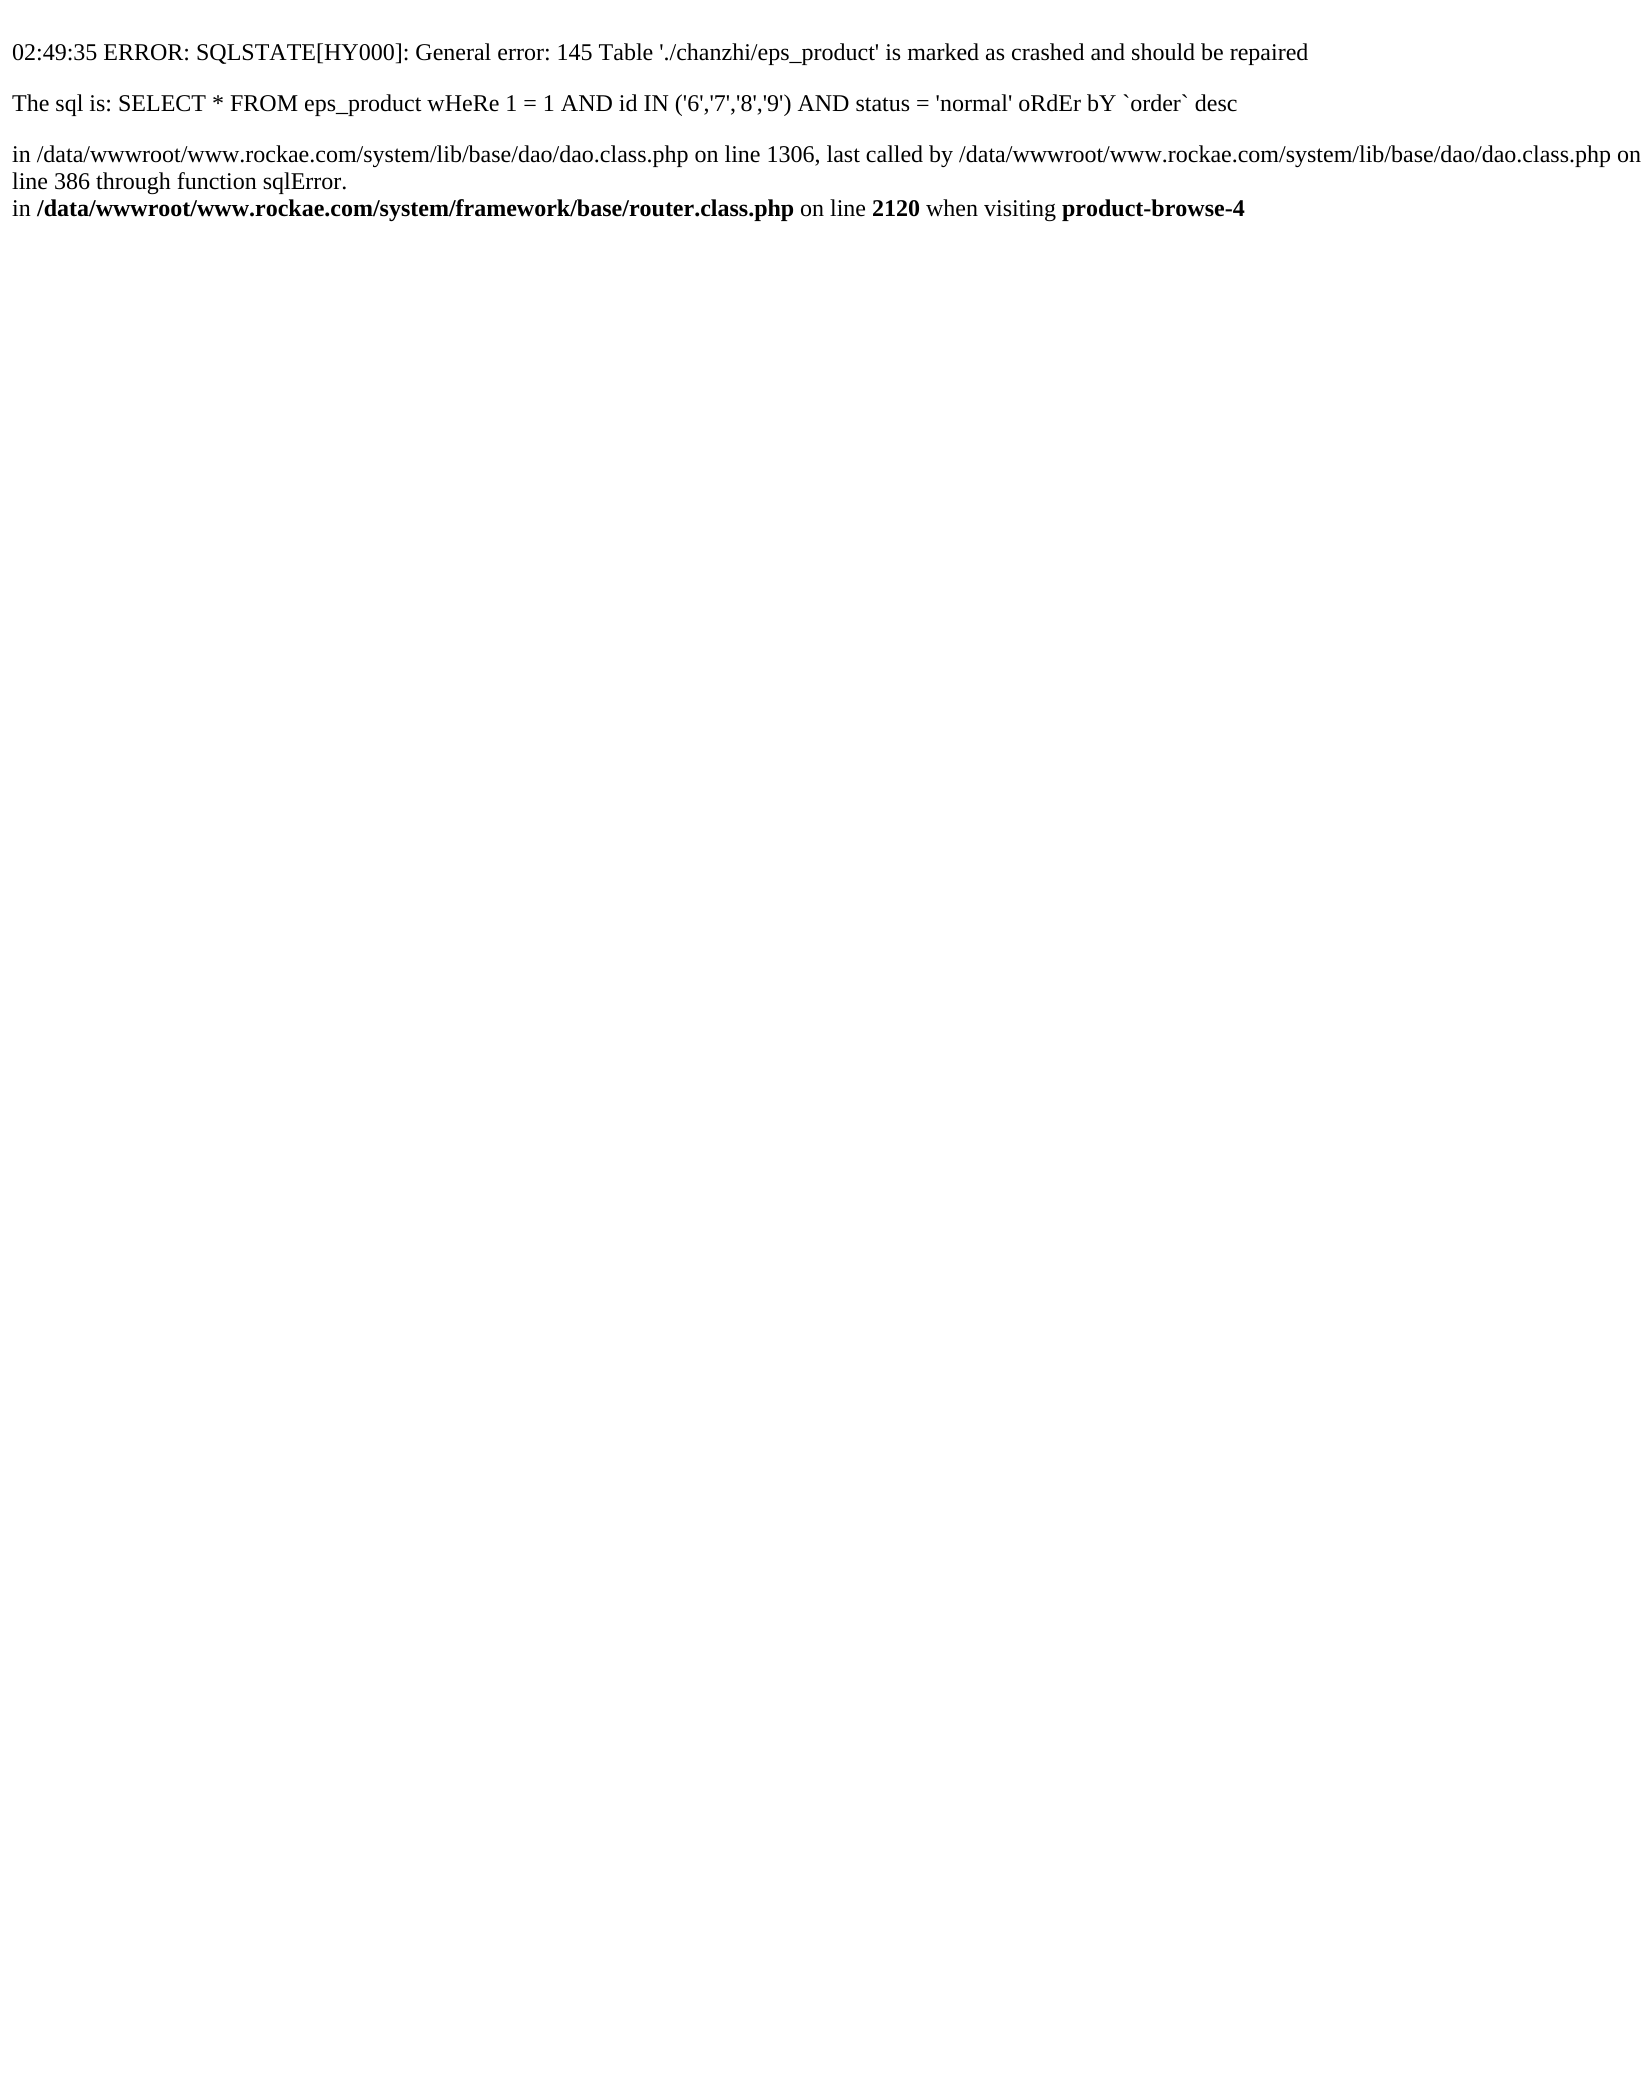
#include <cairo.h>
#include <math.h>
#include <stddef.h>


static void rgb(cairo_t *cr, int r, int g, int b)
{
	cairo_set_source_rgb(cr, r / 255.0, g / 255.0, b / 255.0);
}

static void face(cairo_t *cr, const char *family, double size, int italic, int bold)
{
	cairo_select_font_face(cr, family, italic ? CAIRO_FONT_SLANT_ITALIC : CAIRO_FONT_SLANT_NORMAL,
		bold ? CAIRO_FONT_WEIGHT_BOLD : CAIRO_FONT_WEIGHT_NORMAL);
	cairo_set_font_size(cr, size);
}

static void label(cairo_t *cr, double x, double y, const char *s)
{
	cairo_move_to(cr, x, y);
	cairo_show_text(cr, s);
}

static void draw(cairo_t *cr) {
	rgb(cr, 255, 255, 255);
	cairo_paint(cr);
	face(cr, "Liberation Serif", 24, 0, 0);
	rgb(cr, 0, 0, 0);
	label(cr, 12, 60, "02:49:35 ERROR: SQLSTATE[HY000]: General error: 145 Table './chanzhi/eps_product' is marked as crashed and should be repaired");
	label(cr, 12, 111, "The sql is: SELECT * FROM eps_product wHeRe 1 = 1 AND id IN ('6','7','8','9') AND status = 'normal' oRdEr bY `order` desc");
	label(cr, 12, 162, "in /data/wwwroot/www.rockae.com/system/lib/base/dao/dao.class.php on line 1306, last called by /data/wwwroot/www.rockae.com/system/lib/base/dao/dao.class.php on");
	label(cr, 12, 189, "line 386 through function sqlError.");
	label(cr, 12, 216, "in");
	face(cr, "Liberation Serif", 24, 0, 1);
	label(cr, 37, 216, "/data/wwwroot/www.rockae.com/system/framework/base/router.class.php");
	face(cr, "Liberation Serif", 24, 0, 0);
	label(cr, 800, 216, "on line");
	face(cr, "Liberation Serif", 24, 0, 1);
	label(cr, 872, 216, "2120");
	face(cr, "Liberation Serif", 24, 0, 0);
	label(cr, 926, 216, "when visiting");
	face(cr, "Liberation Serif", 24, 0, 1);
	label(cr, 1062, 216, "product-browse-4");
}

int main(void) {
	cairo_surface_t *surface = cairo_image_surface_create(CAIRO_FORMAT_RGB24, 1652, 2078);
	cairo_t *cr = cairo_create(surface);
	cairo_font_options_t *options = cairo_font_options_create();
	cairo_font_options_set_hint_metrics(options, CAIRO_HINT_METRICS_OFF);
	cairo_font_options_set_hint_style(options, CAIRO_HINT_STYLE_NONE);
	cairo_set_font_options(cr, options);
	cairo_set_miter_limit(cr, 4);
	draw(cr);
	cairo_surface_write_to_png(surface, "render.png");
	cairo_font_options_destroy(options);
	cairo_destroy(cr);
	cairo_surface_destroy(surface);
	return 0;
}
